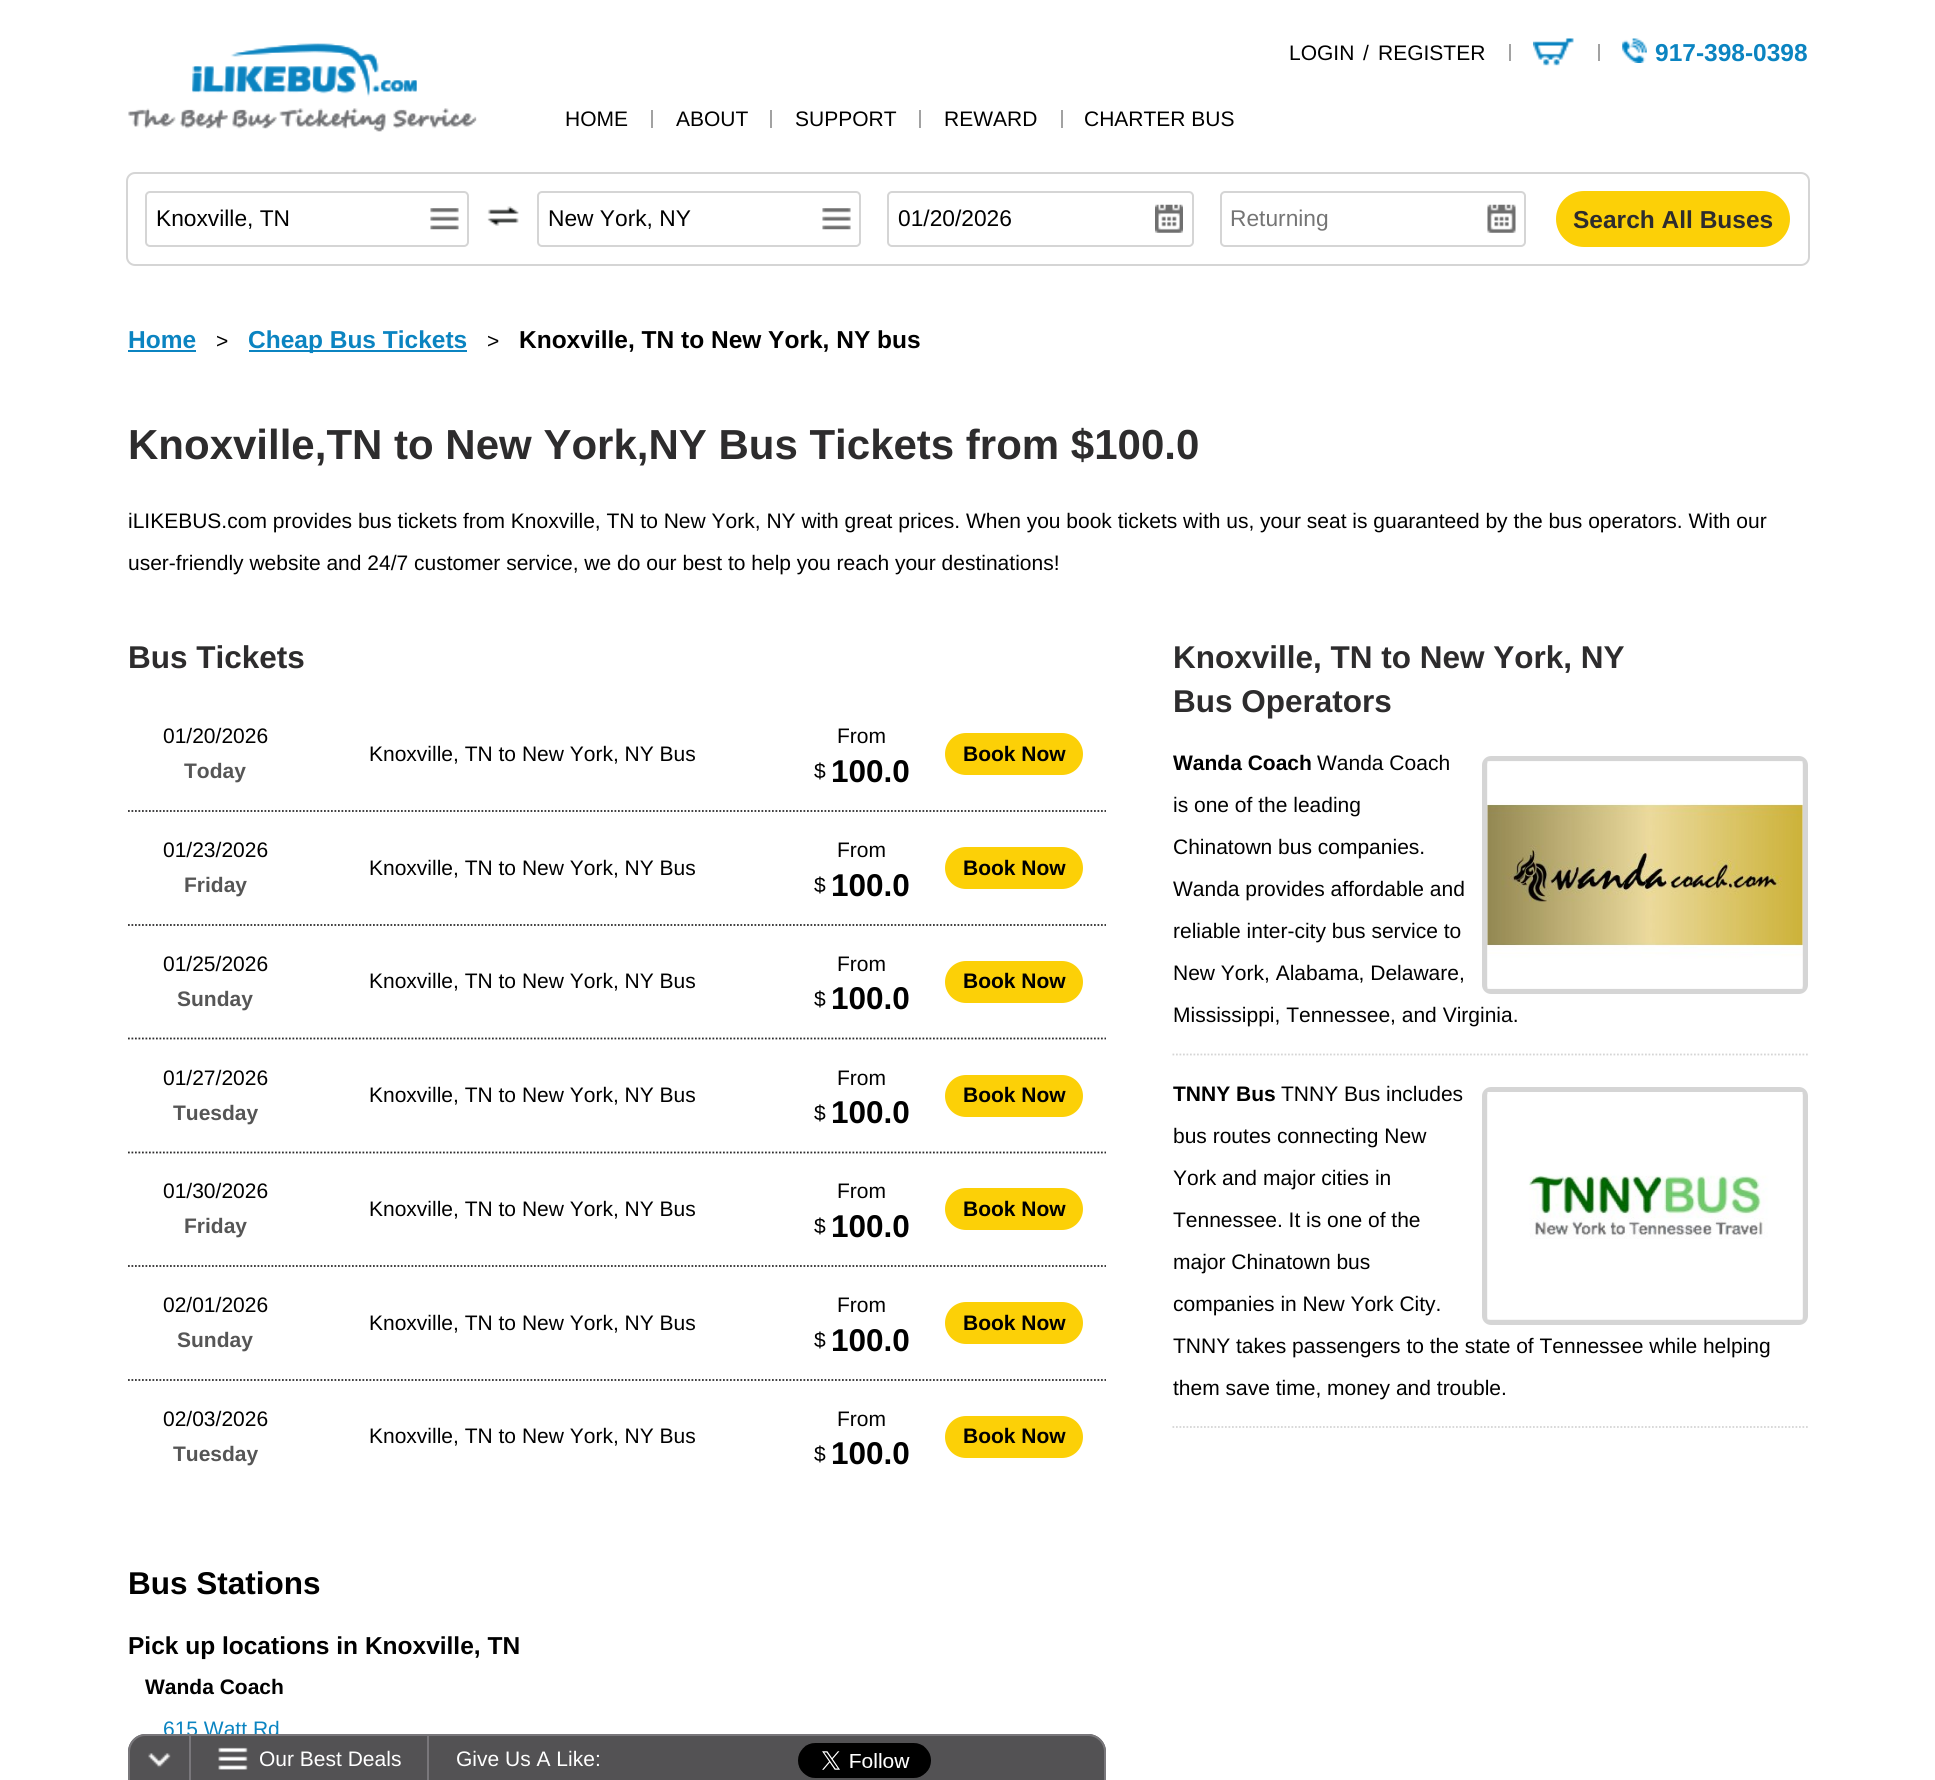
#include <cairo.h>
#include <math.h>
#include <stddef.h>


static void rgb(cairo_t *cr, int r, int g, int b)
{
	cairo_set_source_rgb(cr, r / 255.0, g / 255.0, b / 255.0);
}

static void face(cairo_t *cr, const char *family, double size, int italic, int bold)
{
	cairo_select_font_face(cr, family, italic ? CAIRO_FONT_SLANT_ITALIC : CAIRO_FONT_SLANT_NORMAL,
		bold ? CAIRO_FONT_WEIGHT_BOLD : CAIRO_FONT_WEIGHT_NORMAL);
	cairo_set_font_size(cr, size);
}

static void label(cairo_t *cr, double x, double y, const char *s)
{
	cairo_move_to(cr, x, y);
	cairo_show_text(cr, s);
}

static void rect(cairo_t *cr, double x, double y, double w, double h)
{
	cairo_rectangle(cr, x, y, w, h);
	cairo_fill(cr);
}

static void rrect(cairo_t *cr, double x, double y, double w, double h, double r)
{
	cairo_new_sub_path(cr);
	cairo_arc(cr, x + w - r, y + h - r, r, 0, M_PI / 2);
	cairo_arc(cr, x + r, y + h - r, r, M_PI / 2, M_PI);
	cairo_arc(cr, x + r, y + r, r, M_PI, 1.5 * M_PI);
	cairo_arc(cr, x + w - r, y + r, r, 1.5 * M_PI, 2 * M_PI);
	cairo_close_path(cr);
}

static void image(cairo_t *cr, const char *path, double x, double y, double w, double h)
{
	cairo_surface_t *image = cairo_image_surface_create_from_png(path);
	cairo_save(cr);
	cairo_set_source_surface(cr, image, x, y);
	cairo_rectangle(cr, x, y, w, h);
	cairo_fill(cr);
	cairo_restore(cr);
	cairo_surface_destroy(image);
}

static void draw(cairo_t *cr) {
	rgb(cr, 255, 255, 255);
	cairo_paint(cr);
	image(cr, "image0.png", 128, 43, 349, 89);
	image(cr, "image1.png", 128, 43, 348, 89);
	face(cr, "Liberation Sans", 21, 0, 0);
	rgb(cr, 0, 0, 0);
	label(cr, 1289, 60, "LOGIN");
	label(cr, 1363, 60, "/");
	label(cr, 1378, 60, "REGISTER");
	rgb(cr, 162, 162, 162);
	rect(cr, 1509, 44, 2, 17);
	image(cr, "image2.png", 1533, 38, 41, 28);
	rect(cr, 1598, 44, 2, 17);
	image(cr, "image3.png", 1622, 38, 25, 25);
	face(cr, "Liberation Sans", 24.5, 0, 1);
	rgb(cr, 11, 132, 193);
	label(cr, 1655, 61, "917-398-0398");
	face(cr, "Liberation Sans", 21, 0, 0);
	rgb(cr, 0, 0, 0);
	label(cr, 565, 126, "HOME");
	rgb(cr, 162, 162, 162);
	rect(cr, 651, 110, 2, 18);
	rgb(cr, 0, 0, 0);
	label(cr, 676, 126, "ABOUT");
	rgb(cr, 162, 162, 162);
	rect(cr, 770, 110, 2, 18);
	rgb(cr, 0, 0, 0);
	label(cr, 795, 126, "SUPPORT");
	rgb(cr, 162, 162, 162);
	rect(cr, 919, 110, 2, 18);
	rgb(cr, 0, 0, 0);
	label(cr, 944, 126, "REWARD");
	rgb(cr, 162, 162, 162);
	rect(cr, 1061, 110, 2, 18);
	rgb(cr, 0, 0, 0);
	label(cr, 1084, 126, "CHARTER BUS");
	rrect(cr, 127, 173, 1682, 92, 8);
	rgb(cr, 213, 213, 213);
	cairo_stroke(cr);
	rrect(cr, 146, 192, 322, 54, 4);
	cairo_stroke(cr);
	face(cr, "Liberation Sans", 22.75, 0, 0);
	rgb(cr, 0, 0, 0);
	label(cr, 156, 226, "Knoxville, TN");
	image(cr, "image4.png", 430, 208, 29, 22);
	image(cr, "image5.png", 487, 206, 32, 20);
	rrect(cr, 538, 192, 322, 54, 4);
	rgb(cr, 213, 213, 213);
	cairo_stroke(cr);
	rgb(cr, 0, 0, 0);
	label(cr, 548, 226, "New York, NY");
	image(cr, "image4.png", 822, 208, 29, 22);
	rrect(cr, 888, 192, 305, 54, 4);
	rgb(cr, 213, 213, 213);
	cairo_stroke(cr);
	rgb(cr, 0, 0, 0);
	label(cr, 898, 226, "01/20/2026");
	image(cr, "image6.png", 1155, 204, 28, 29);
	rrect(cr, 1221, 192, 304, 54, 4);
	rgb(cr, 213, 213, 213);
	cairo_stroke(cr);
	rgb(cr, 117, 117, 117);
	label(cr, 1230, 226, "Returning");
	image(cr, "image7.png", 1487, 204, 29, 29);
	rgb(cr, 252, 208, 7);
	rrect(cr, 1556, 191, 234, 56, 28);
	cairo_fill(cr);
	face(cr, "Liberation Sans", 24.5, 0, 1);
	rgb(cr, 45, 44, 45);
	label(cr, 1573, 228, "Search All Buses");
	rgb(cr, 11, 132, 193);
	label(cr, 128, 348, "Home");
	rect(cr, 128, 350, 68, 2);
	face(cr, "Liberation Sans", 21, 0, 0);
	rgb(cr, 0, 0, 0);
	label(cr, 216, 348, ">");
	rgb(cr, 11, 132, 193);
	rect(cr, 249, 350, 218, 2);
	face(cr, "Liberation Sans", 24.5, 0, 1);
	label(cr, 248, 348, "Cheap Bus Tickets");
	face(cr, "Liberation Sans", 21, 0, 0);
	rgb(cr, 0, 0, 0);
	label(cr, 487, 348, ">");
	face(cr, "Liberation Sans", 24.5, 0, 1);
	label(cr, 519, 348, "Knoxville, TN to New York, NY bus");
	face(cr, "Liberation Sans", 42, 0, 1);
	rgb(cr, 45, 44, 45);
	label(cr, 128, 459, "Knoxville,TN to New York,NY Bus Tickets from $100.0");
	face(cr, "Liberation Sans", 21, 0, 0);
	rgb(cr, 0, 0, 0);
	label(cr, 128, 528, "iLIKEBUS.com provides bus tickets from Knoxville, TN to New York, NY with great prices. When you book tickets with us, your seat is guaranteed by the bus operators. With our");
	label(cr, 128, 570, "user-friendly website and 24/7 customer service, we do our best to help you reach your destinations!");
	face(cr, "Liberation Sans", 31.5, 0, 1);
	rgb(cr, 45, 44, 45);
	label(cr, 128, 668, "Bus Tickets");
	face(cr, "Liberation Sans", 21, 0, 0);
	rgb(cr, 0, 0, 0);
	label(cr, 163, 743, "01/20/2026");
	face(cr, "Liberation Sans", 21, 0, 1);
	rgb(cr, 86, 86, 86);
	label(cr, 184, 778, "Today");
	face(cr, "Liberation Sans", 21, 0, 0);
	rgb(cr, 0, 0, 0);
	label(cr, 369, 761, "Knoxville, TN to New York, NY Bus");
	label(cr, 837, 743, "From");
	label(cr, 814, 778, "$");
	face(cr, "Liberation Sans", 31.5, 0, 1);
	label(cr, 831, 782, "100.0");
	rgb(cr, 252, 208, 7);
	rrect(cr, 945, 733, 138, 42, 21);
	cairo_fill(cr);
	face(cr, "Liberation Sans", 21, 0, 1);
	rgb(cr, 0, 0, 0);
	label(cr, 963, 761, "Book Now");
	cairo_new_path(cr);
	cairo_move_to(cr, 128, 811);
	cairo_line_to(cr, 1106, 811);
	rgb(cr, 45, 44, 45);
	cairo_set_line_width(cr, 1.8);
	cairo_set_dash(cr, (double[]){1.75, 1.75}, 2, 0);
	cairo_stroke(cr);
	face(cr, "Liberation Sans", 21, 0, 0);
	rgb(cr, 0, 0, 0);
	label(cr, 163, 857, "01/23/2026");
	face(cr, "Liberation Sans", 21, 0, 1);
	rgb(cr, 86, 86, 86);
	label(cr, 184, 892, "Friday");
	face(cr, "Liberation Sans", 21, 0, 0);
	rgb(cr, 0, 0, 0);
	label(cr, 369, 875, "Knoxville, TN to New York, NY Bus");
	label(cr, 837, 857, "From");
	label(cr, 814, 892, "$");
	face(cr, "Liberation Sans", 31.5, 0, 1);
	label(cr, 831, 896, "100.0");
	rgb(cr, 252, 208, 7);
	rrect(cr, 945, 847, 138, 42, 21);
	cairo_fill(cr);
	face(cr, "Liberation Sans", 21, 0, 1);
	rgb(cr, 0, 0, 0);
	label(cr, 963, 875, "Book Now");
	cairo_new_path(cr);
	cairo_move_to(cr, 128, 925);
	cairo_line_to(cr, 1106, 925);
	rgb(cr, 45, 44, 45);
	cairo_stroke(cr);
	face(cr, "Liberation Sans", 21, 0, 0);
	rgb(cr, 0, 0, 0);
	label(cr, 163, 971, "01/25/2026");
	face(cr, "Liberation Sans", 21, 0, 1);
	rgb(cr, 86, 86, 86);
	label(cr, 177, 1006, "Sunday");
	face(cr, "Liberation Sans", 21, 0, 0);
	rgb(cr, 0, 0, 0);
	label(cr, 369, 988, "Knoxville, TN to New York, NY Bus");
	label(cr, 837, 971, "From");
	label(cr, 814, 1006, "$");
	face(cr, "Liberation Sans", 31.5, 0, 1);
	label(cr, 831, 1009, "100.0");
	rgb(cr, 252, 208, 7);
	rrect(cr, 945, 961, 138, 42, 21);
	cairo_fill(cr);
	face(cr, "Liberation Sans", 21, 0, 1);
	rgb(cr, 0, 0, 0);
	label(cr, 963, 988, "Book Now");
	cairo_new_path(cr);
	cairo_move_to(cr, 128, 1038.5);
	cairo_line_to(cr, 1106, 1038.5);
	rgb(cr, 45, 44, 45);
	cairo_stroke(cr);
	face(cr, "Liberation Sans", 21, 0, 0);
	rgb(cr, 0, 0, 0);
	label(cr, 163, 1085, "01/27/2026");
	face(cr, "Liberation Sans", 21, 0, 1);
	rgb(cr, 86, 86, 86);
	label(cr, 173, 1120, "Tuesday");
	face(cr, "Liberation Sans", 21, 0, 0);
	rgb(cr, 0, 0, 0);
	label(cr, 369, 1102, "Knoxville, TN to New York, NY Bus");
	label(cr, 837, 1085, "From");
	label(cr, 814, 1120, "$");
	face(cr, "Liberation Sans", 31.5, 0, 1);
	label(cr, 831, 1123, "100.0");
	rgb(cr, 252, 208, 7);
	rrect(cr, 945, 1075, 138, 42, 21);
	cairo_fill(cr);
	face(cr, "Liberation Sans", 21, 0, 1);
	rgb(cr, 0, 0, 0);
	label(cr, 963, 1102, "Book Now");
	cairo_new_path(cr);
	cairo_move_to(cr, 128, 1152.5);
	cairo_line_to(cr, 1106, 1152.5);
	rgb(cr, 45, 44, 45);
	cairo_stroke(cr);
	face(cr, "Liberation Sans", 21, 0, 0);
	rgb(cr, 0, 0, 0);
	label(cr, 163, 1198, "01/30/2026");
	face(cr, "Liberation Sans", 21, 0, 1);
	rgb(cr, 86, 86, 86);
	label(cr, 184, 1233, "Friday");
	face(cr, "Liberation Sans", 21, 0, 0);
	rgb(cr, 0, 0, 0);
	label(cr, 369, 1216, "Knoxville, TN to New York, NY Bus");
	label(cr, 837, 1198, "From");
	label(cr, 814, 1233, "$");
	face(cr, "Liberation Sans", 31.5, 0, 1);
	label(cr, 831, 1237, "100.0");
	rgb(cr, 252, 208, 7);
	rrect(cr, 945, 1188, 138, 42, 21);
	cairo_fill(cr);
	face(cr, "Liberation Sans", 21, 0, 1);
	rgb(cr, 0, 0, 0);
	label(cr, 963, 1216, "Book Now");
	cairo_new_path(cr);
	cairo_move_to(cr, 128, 1266);
	cairo_line_to(cr, 1106, 1266);
	rgb(cr, 45, 44, 45);
	cairo_stroke(cr);
	face(cr, "Liberation Sans", 21, 0, 0);
	rgb(cr, 0, 0, 0);
	label(cr, 163, 1312, "02/01/2026");
	face(cr, "Liberation Sans", 21, 0, 1);
	rgb(cr, 86, 86, 86);
	label(cr, 177, 1347, "Sunday");
	face(cr, "Liberation Sans", 21, 0, 0);
	rgb(cr, 0, 0, 0);
	label(cr, 369, 1330, "Knoxville, TN to New York, NY Bus");
	label(cr, 837, 1312, "From");
	label(cr, 814, 1347, "$");
	face(cr, "Liberation Sans", 31.5, 0, 1);
	label(cr, 831, 1351, "100.0");
	rgb(cr, 252, 208, 7);
	rrect(cr, 945, 1302, 138, 42, 21);
	cairo_fill(cr);
	face(cr, "Liberation Sans", 21, 0, 1);
	rgb(cr, 0, 0, 0);
	label(cr, 963, 1330, "Book Now");
	cairo_new_path(cr);
	cairo_move_to(cr, 128, 1380);
	cairo_line_to(cr, 1106, 1380);
	rgb(cr, 45, 44, 45);
	cairo_stroke(cr);
	face(cr, "Liberation Sans", 21, 0, 0);
	rgb(cr, 0, 0, 0);
	label(cr, 163, 1426, "02/03/2026");
	face(cr, "Liberation Sans", 21, 0, 1);
	rgb(cr, 86, 86, 86);
	label(cr, 173, 1461, "Tuesday");
	face(cr, "Liberation Sans", 21, 0, 0);
	rgb(cr, 0, 0, 0);
	label(cr, 369, 1443, "Knoxville, TN to New York, NY Bus");
	label(cr, 837, 1426, "From");
	label(cr, 814, 1461, "$");
	face(cr, "Liberation Sans", 31.5, 0, 1);
	label(cr, 831, 1464, "100.0");
	rgb(cr, 252, 208, 7);
	rrect(cr, 945, 1416, 138, 42, 21);
	cairo_fill(cr);
	face(cr, "Liberation Sans", 21, 0, 1);
	rgb(cr, 0, 0, 0);
	label(cr, 963, 1443, "Book Now");
	face(cr, "Liberation Sans", 31.5, 0, 1);
	label(cr, 128, 1594, "Bus Stations");
	face(cr, "Liberation Sans", 24.5, 0, 1);
	label(cr, 128, 1654, "Pick up locations in Knoxville, TN");
	face(cr, "Liberation Sans", 21, 0, 1);
	label(cr, 145, 1694, "Wanda Coach");
	face(cr, "Liberation Sans", 21, 0, 0);
	rgb(cr, 11, 132, 193);
	label(cr, 163, 1736, "615 Watt Rd");
	face(cr, "Liberation Sans", 31.5, 0, 1);
	rgb(cr, 45, 44, 45);
	label(cr, 1173, 668, "Knoxville, TN to New York, NY");
	label(cr, 1173, 712, "Bus Operators");
	cairo_new_path(cr);
	cairo_move_to(cr, 1172.5, 1054.5);
	cairo_line_to(cr, 1808, 1054.5);
	rgb(cr, 213, 213, 213);
	cairo_stroke(cr);
	face(cr, "Liberation Sans", 21, 0, 1);
	rgb(cr, 0, 0, 0);
	label(cr, 1173, 770, "Wanda Coach");
	face(cr, "Liberation Sans", 21, 0, 0);
	label(cr, 1317, 770, "Wanda Coach");
	rgb(cr, 239, 239, 239);
	rrect(cr, 1484.5, 758.5, 321, 233, 6.5);
	cairo_fill_preserve(cr);
	rgb(cr, 213, 213, 213);
	cairo_set_line_width(cr, 5);
	cairo_set_dash(cr, NULL, 0, 0);
	cairo_stroke(cr);
	image(cr, "image8.png", 1487, 761, 316, 228);
	rgb(cr, 0, 0, 0);
	label(cr, 1173, 812, "is one of the leading");
	label(cr, 1173, 854, "Chinatown bus companies.");
	label(cr, 1173, 896, "Wanda provides affordable and");
	label(cr, 1173, 938, "reliable inter-city bus service to");
	label(cr, 1173, 980, "New York, Alabama, Delaware,");
	label(cr, 1173, 1022, "Mississippi, Tennessee, and Virginia.");
	cairo_new_path(cr);
	cairo_move_to(cr, 1172.5, 1427);
	cairo_line_to(cr, 1808, 1427);
	rgb(cr, 213, 213, 213);
	cairo_set_line_width(cr, 1.8);
	cairo_set_dash(cr, (double[]){1.75, 1.75}, 2, 0);
	cairo_stroke(cr);
	cairo_save(cr);
	cairo_rectangle(cr, 1173, 1055, 635, 371);
	cairo_clip(cr);
	face(cr, "Liberation Sans", 21, 0, 1);
	rgb(cr, 0, 0, 0);
	label(cr, 1173, 1101, "TNNY Bus");
	cairo_restore(cr);
	rgb(cr, 0, 0, 0);
	label(cr, 1281, 1101, "TNNY Bus includes");
	rgb(cr, 239, 239, 239);
	rrect(cr, 1484.5, 1089.5, 321, 233, 6.5);
	cairo_fill_preserve(cr);
	rgb(cr, 213, 213, 213);
	cairo_set_line_width(cr, 5);
	cairo_set_dash(cr, NULL, 0, 0);
	cairo_stroke(cr);
	image(cr, "image9.png", 1487, 1092, 316, 228);
	rgb(cr, 0, 0, 0);
	label(cr, 1173, 1143, "bus routes connecting New");
	label(cr, 1173, 1185, "York and major cities in");
	label(cr, 1173, 1227, "Tennessee. It is one of the");
	label(cr, 1173, 1269, "major Chinatown bus");
	label(cr, 1173, 1311, "companies in New York City.");
	label(cr, 1173, 1353, "TNNY takes passengers to the state of Tennessee while helping");
	label(cr, 1173, 1395, "them save time, money and trouble.");
	rgb(cr, 83, 82, 84);
	cairo_new_path(cr);
	cairo_move_to(cr, 146, 1734);
	cairo_line_to(cr, 1088, 1734);
	cairo_curve_to(cr, 1098, 1734, 1106, 1742, 1106, 1752);
	cairo_line_to(cr, 1106, 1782);
	cairo_line_to(cr, 128, 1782);
	cairo_line_to(cr, 128, 1752);
	cairo_curve_to(cr, 128, 1742, 136, 1734, 146, 1734);
	cairo_close_path(cr);
	cairo_fill(cr);
	rgb(cr, 121, 119, 123);
	cairo_set_fill_rule(cr, CAIRO_FILL_RULE_EVEN_ODD);
	cairo_new_path(cr);
	cairo_move_to(cr, 145, 1734);
	cairo_line_to(cr, 1088, 1734);
	cairo_curve_to(cr, 1098, 1734, 1106, 1742, 1106, 1752);
	cairo_line_to(cr, 1106, 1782);
	cairo_line_to(cr, 128, 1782);
	cairo_line_to(cr, 128, 1752);
	cairo_curve_to(cr, 128, 1742, 136, 1734, 145, 1734);
	cairo_close_path(cr);
	cairo_move_to(cr, 145, 1736);
	cairo_line_to(cr, 1088, 1736);
	cairo_curve_to(cr, 1097, 1736, 1104, 1743, 1104, 1752);
	cairo_line_to(cr, 1104, 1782);
	cairo_line_to(cr, 130, 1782);
	cairo_line_to(cr, 130, 1752);
	cairo_curve_to(cr, 130, 1743, 137, 1736, 145, 1736);
	cairo_close_path(cr);
	cairo_fill(cr);
	image(cr, "image10.png", 148, 1753, 23, 15);
	rect(cr, 189, 1736, 2, 44);
	image(cr, "image11.png", 218, 1747, 30, 23);
	rgb(cr, 255, 255, 255);
	label(cr, 259, 1766, "Our Best Deals");
	rgb(cr, 121, 119, 123);
	rect(cr, 427, 1736, 2, 44);
	rgb(cr, 255, 255, 255);
	label(cr, 456, 1766, "Give Us A Like:");
	image(cr, "image12.png", 798, 1743, 133, 35);
}

int main(void) {
	cairo_surface_t *surface = cairo_image_surface_create(CAIRO_FORMAT_RGB24, 1935, 1780);
	cairo_t *cr = cairo_create(surface);
	cairo_font_options_t *options = cairo_font_options_create();
	cairo_font_options_set_hint_metrics(options, CAIRO_HINT_METRICS_OFF);
	cairo_font_options_set_hint_style(options, CAIRO_HINT_STYLE_NONE);
	cairo_set_font_options(cr, options);
	cairo_set_miter_limit(cr, 4);
	draw(cr);
	cairo_surface_write_to_png(surface, "render.png");
	cairo_font_options_destroy(options);
	cairo_destroy(cr);
	cairo_surface_destroy(surface);
	return 0;
}
